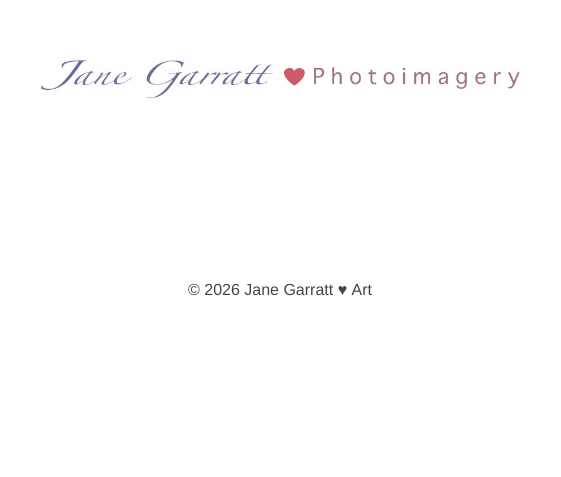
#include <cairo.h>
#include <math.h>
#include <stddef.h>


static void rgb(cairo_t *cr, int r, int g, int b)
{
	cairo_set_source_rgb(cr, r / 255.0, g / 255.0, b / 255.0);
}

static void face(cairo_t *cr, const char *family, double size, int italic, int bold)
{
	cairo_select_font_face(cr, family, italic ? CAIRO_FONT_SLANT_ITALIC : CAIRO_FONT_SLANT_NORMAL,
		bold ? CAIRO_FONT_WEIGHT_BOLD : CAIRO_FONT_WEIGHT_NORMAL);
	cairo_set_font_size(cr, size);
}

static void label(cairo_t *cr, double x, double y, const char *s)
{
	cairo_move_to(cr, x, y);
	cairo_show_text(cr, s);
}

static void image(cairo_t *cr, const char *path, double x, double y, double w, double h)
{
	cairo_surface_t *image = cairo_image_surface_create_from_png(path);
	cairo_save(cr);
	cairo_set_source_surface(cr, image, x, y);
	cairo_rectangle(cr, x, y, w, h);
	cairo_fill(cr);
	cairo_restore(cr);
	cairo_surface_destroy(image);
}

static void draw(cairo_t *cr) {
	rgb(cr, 255, 255, 255);
	cairo_paint(cr);
	image(cr, "image0.png", 37, 59, 483, 41);
	face(cr, "Liberation Sans", 16, 0, 0);
	rgb(cr, 68, 68, 68);
	label(cr, 188, 295, "© 2026 Jane Garratt ♥ Art");
}

int main(void) {
	cairo_surface_t *surface = cairo_image_surface_create(CAIRO_FORMAT_RGB24, 561, 477);
	cairo_t *cr = cairo_create(surface);
	cairo_font_options_t *options = cairo_font_options_create();
	cairo_font_options_set_hint_metrics(options, CAIRO_HINT_METRICS_OFF);
	cairo_font_options_set_hint_style(options, CAIRO_HINT_STYLE_NONE);
	cairo_set_font_options(cr, options);
	cairo_set_miter_limit(cr, 4);
	draw(cr);
	cairo_surface_write_to_png(surface, "render.png");
	cairo_font_options_destroy(options);
	cairo_destroy(cr);
	cairo_surface_destroy(surface);
	return 0;
}
